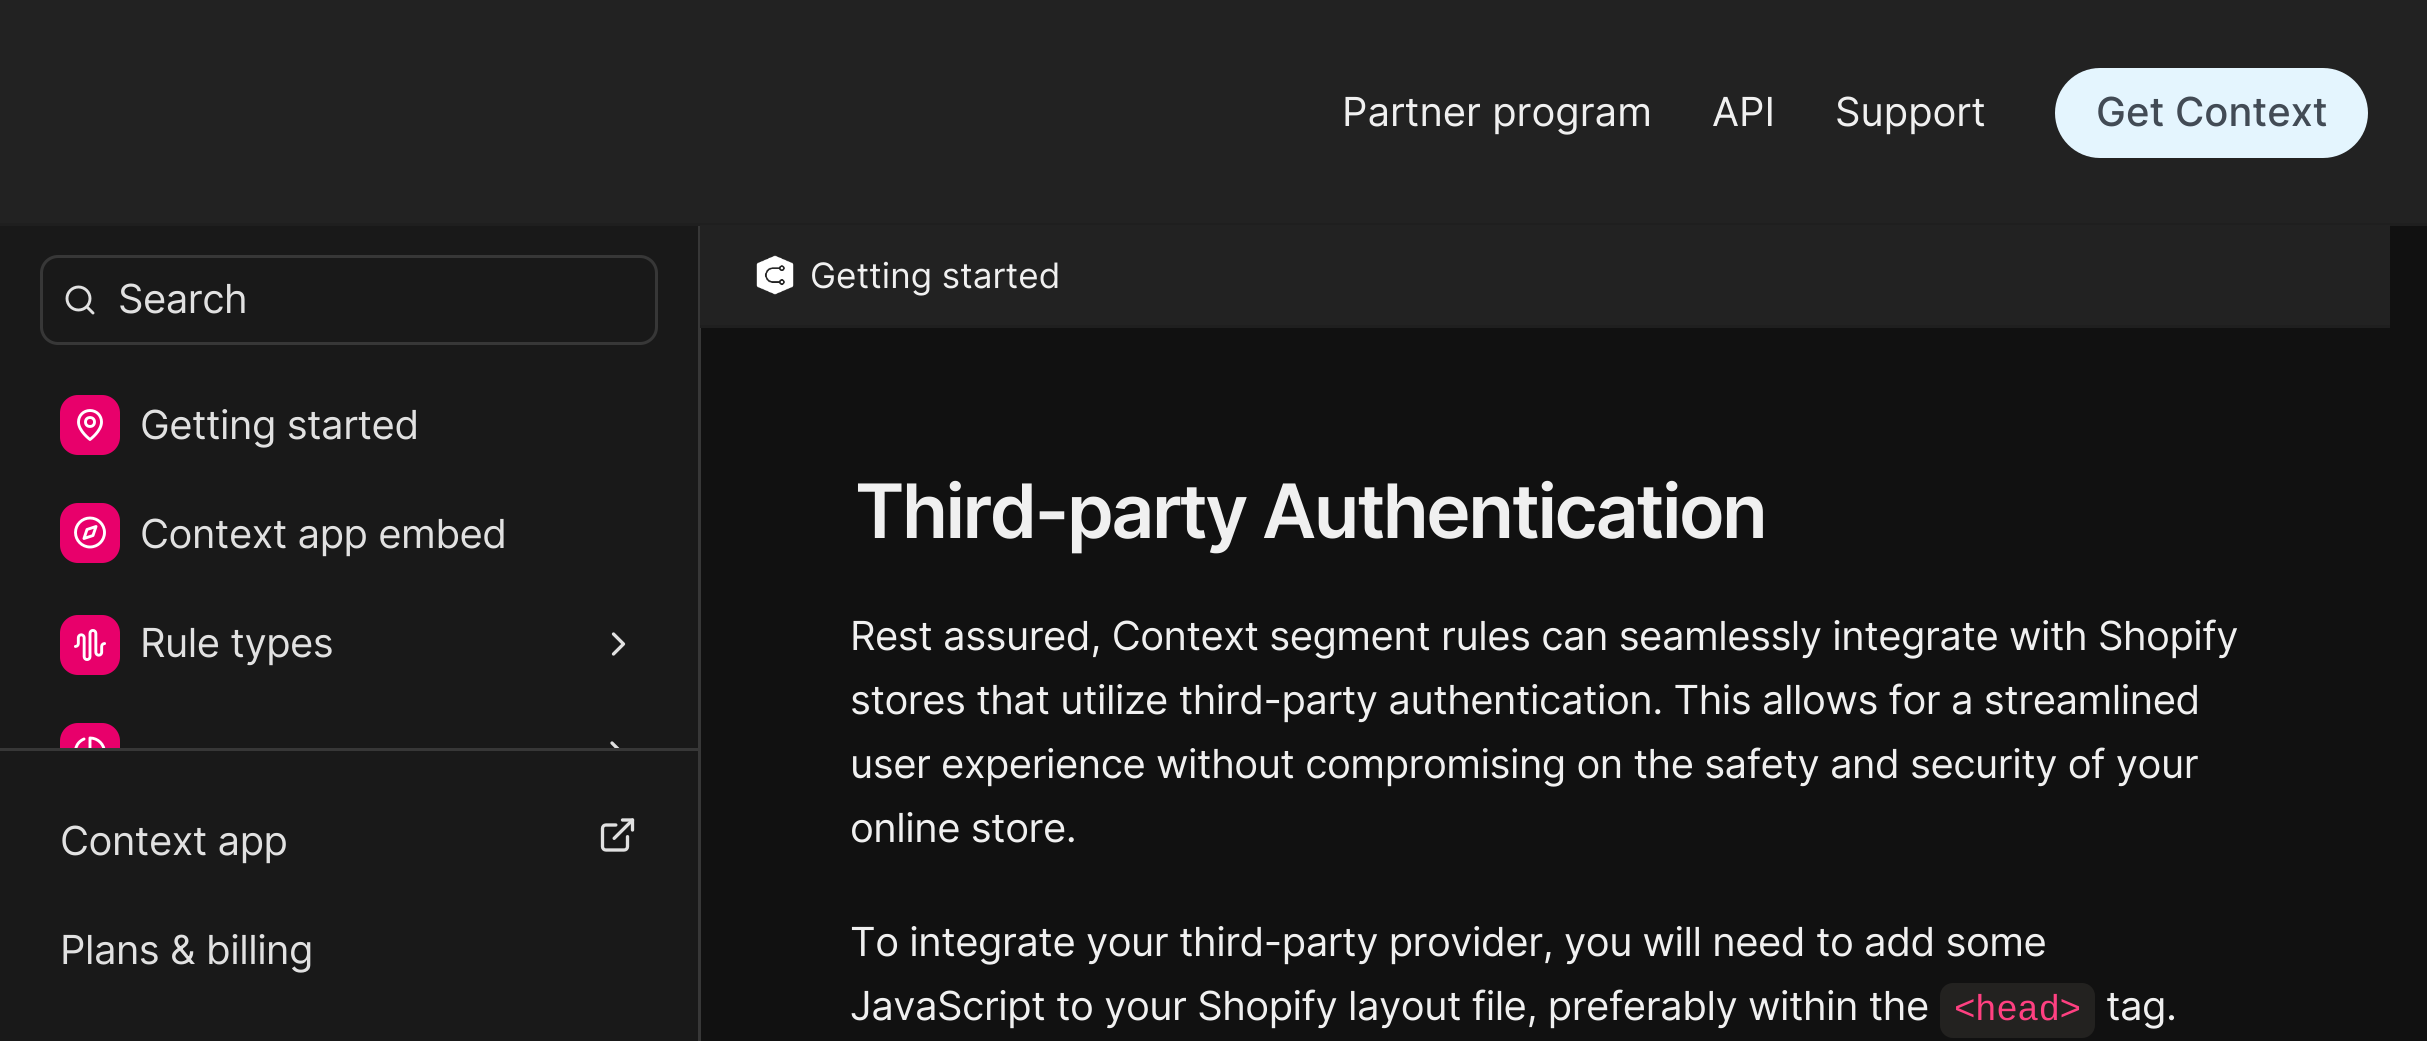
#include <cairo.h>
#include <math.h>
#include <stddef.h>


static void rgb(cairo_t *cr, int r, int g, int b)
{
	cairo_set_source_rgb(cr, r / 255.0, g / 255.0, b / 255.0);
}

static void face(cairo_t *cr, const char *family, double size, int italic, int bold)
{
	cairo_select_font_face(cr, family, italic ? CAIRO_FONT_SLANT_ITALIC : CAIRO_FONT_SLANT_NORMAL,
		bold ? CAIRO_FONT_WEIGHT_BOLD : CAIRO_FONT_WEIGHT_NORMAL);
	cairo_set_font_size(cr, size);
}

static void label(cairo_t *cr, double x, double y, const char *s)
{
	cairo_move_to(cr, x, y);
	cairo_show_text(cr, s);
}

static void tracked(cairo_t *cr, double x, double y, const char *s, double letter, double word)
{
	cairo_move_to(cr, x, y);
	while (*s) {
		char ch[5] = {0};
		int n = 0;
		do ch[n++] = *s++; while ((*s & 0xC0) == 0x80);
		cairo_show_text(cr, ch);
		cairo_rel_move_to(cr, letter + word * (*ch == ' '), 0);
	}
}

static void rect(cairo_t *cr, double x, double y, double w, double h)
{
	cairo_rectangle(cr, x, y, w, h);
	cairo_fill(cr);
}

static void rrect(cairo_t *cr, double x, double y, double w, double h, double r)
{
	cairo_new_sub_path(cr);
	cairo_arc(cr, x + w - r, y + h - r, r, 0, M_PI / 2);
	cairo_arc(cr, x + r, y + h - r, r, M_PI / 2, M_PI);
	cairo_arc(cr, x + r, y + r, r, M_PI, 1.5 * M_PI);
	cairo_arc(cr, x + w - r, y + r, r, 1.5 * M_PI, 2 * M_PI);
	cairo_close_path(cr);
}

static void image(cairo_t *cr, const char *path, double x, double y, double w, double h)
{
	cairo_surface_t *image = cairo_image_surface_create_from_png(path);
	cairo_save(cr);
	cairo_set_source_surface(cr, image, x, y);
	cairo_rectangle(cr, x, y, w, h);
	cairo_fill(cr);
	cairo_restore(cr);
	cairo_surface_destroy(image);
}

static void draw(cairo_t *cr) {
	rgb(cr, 17, 17, 17);
	cairo_paint(cr);
	rgb(cr, 34, 34, 34);
	rect(cr, 0, 0, 2427, 223);
	rgb(cr, 55, 55, 55);
	rect(cr, 698, 225, 3, 816);
	rgb(cr, 31, 31, 31);
	rect(cr, 0, 223, 2427, 3);
	face(cr, "Inter", 40, 0, 0);
	rgb(cr, 240, 240, 240);
	label(cr, 1342, 126, "Partner program");
	label(cr, 1712, 126, "API");
	label(cr, 1835, 126, "Support");
	rgb(cr, 228, 245, 254);
	rrect(cr, 2055, 68, 313, 90, 45);
	cairo_fill(cr);
	face(cr, "Inter Medium", 40, 0, 0);
	rgb(cr, 66, 75, 85);
	label(cr, 2096, 126, "Get Context");
	rgb(cr, 25, 25, 25);
	rect(cr, 0, 226, 698, 815);
	rrect(cr, 41.5, 256.5, 615, 87, 16.5);
	rgb(cr, 55, 55, 55);
	cairo_set_line_width(cr, 3);
	cairo_stroke(cr);
	cairo_arc(cr, 78.5, 298.5, 11.5, 0, 2 * M_PI);
	rgb(cr, 225, 225, 225);
	cairo_set_line_width(cr, 2.9);
	cairo_stroke(cr);
	cairo_new_path(cr);
	cairo_move_to(cr, 93, 313);
	cairo_line_to(cr, 87, 307);
	cairo_set_line_cap(cr, CAIRO_LINE_CAP_ROUND);
	cairo_set_line_join(cr, CAIRO_LINE_JOIN_ROUND);
	cairo_stroke(cr);
	face(cr, "Inter", 40, 0, 0);
	tracked(cr, 118, 313, "Search", -0.5, 0);
	rgb(cr, 232, 0, 107);
	rrect(cr, 60, 395, 60, 60, 18);
	cairo_fill(cr);
	cairo_new_path(cr);
	cairo_move_to(cr, 101.5, 422);
	cairo_curve_to(cr, 101.5, 431, 90, 439.5, 90, 439.5);
	cairo_curve_to(cr, 90, 439.5, 78.5, 431, 78.5, 422);
	cairo_curve_to(cr, 78.5, 415.5, 83.5, 410.5, 90, 410.5);
	cairo_curve_to(cr, 96.5, 410.5, 101.5, 415.5, 101.5, 422);
	cairo_close_path(cr);
	rgb(cr, 255, 255, 255);
	cairo_stroke(cr);
	cairo_arc(cr, 90, 422, 4.5, 0, 2 * M_PI);
	cairo_set_line_cap(cr, CAIRO_LINE_CAP_BUTT);
	cairo_set_line_join(cr, CAIRO_LINE_JOIN_MITER);
	cairo_stroke(cr);
	rgb(cr, 225, 225, 225);
	tracked(cr, 140, 439, "Getting started", -0.5, 0);
	rgb(cr, 232, 0, 107);
	rrect(cr, 60, 503, 60, 60, 18);
	cairo_fill(cr);
	cairo_arc(cr, 90, 532.5, 14.5, 0, 2 * M_PI);
	rgb(cr, 255, 255, 255);
	cairo_stroke(cr);
	cairo_new_path(cr);
	cairo_move_to(cr, 96, 526.5);
	cairo_line_to(cr, 93, 535.5);
	cairo_line_to(cr, 84, 538.5);
	cairo_line_to(cr, 87, 529.5);
	cairo_close_path(cr);
	cairo_set_line_cap(cr, CAIRO_LINE_CAP_ROUND);
	cairo_set_line_join(cr, CAIRO_LINE_JOIN_ROUND);
	cairo_stroke(cr);
	rgb(cr, 225, 225, 225);
	tracked(cr, 140, 548, "Context app embed", -0.5, 0);
	rgb(cr, 232, 0, 107);
	rrect(cr, 60, 615, 60, 60, 18);
	cairo_fill(cr);
	image(cr, "image0.png", 74, 629, 32, 32);
	rgb(cr, 225, 225, 225);
	tracked(cr, 140, 657, "Rule types", -0.5, 0);
	cairo_new_path(cr);
	cairo_move_to(cr, 613.5, 654);
	cairo_line_to(cr, 623.5, 644);
	cairo_line_to(cr, 613.5, 634);
	cairo_set_line_width(cr, 3.3);
	cairo_stroke(cr);
	rgb(cr, 232, 0, 107);
	cairo_new_path(cr);
	cairo_move_to(cr, 78, 723);
	cairo_line_to(cr, 102, 723);
	cairo_curve_to(cr, 112, 723, 120, 731, 120, 741);
	cairo_line_to(cr, 120, 748);
	cairo_line_to(cr, 60, 748);
	cairo_line_to(cr, 60, 741);
	cairo_curve_to(cr, 60, 731, 68, 723, 78, 723);
	cairo_close_path(cr);
	cairo_fill(cr);
	cairo_save(cr);
	cairo_rectangle(cr, 0, 365, 698, 383);
	cairo_clip(cr);
	cairo_new_path(cr);
	cairo_move_to(cr, 103.5, 758);
	cairo_curve_to(cr, 102, 762, 99, 764.5, 95, 766);
	cairo_curve_to(cr, 77.5, 773, 67, 746.5, 84, 739);
	cairo_move_to(cr, 104.5, 752.5);
	cairo_curve_to(cr, 104.5, 744.5, 98, 738, 90, 738);
	cairo_line_to(cr, 90, 752.5);
	cairo_close_path(cr);
	rgb(cr, 255, 255, 255);
	cairo_set_line_width(cr, 2.9);
	cairo_stroke(cr);
	cairo_new_path(cr);
	cairo_move_to(cr, 612, 763);
	cairo_line_to(cr, 622, 753);
	cairo_line_to(cr, 612, 743);
	rgb(cr, 225, 225, 225);
	cairo_set_line_width(cr, 3.3);
	cairo_stroke(cr);
	cairo_restore(cr);
	rgb(cr, 55, 55, 55);
	rect(cr, 0, 748, 698, 3);
	rgb(cr, 225, 225, 225);
	tracked(cr, 60, 855, "Context app", -0.5, 0);
	image(cr, "image1.png", 600, 818, 35, 34);
	tracked(cr, 60, 964, "Plans & billing", -0.5, 0);
	rgb(cr, 34, 34, 34);
	rect(cr, 700, 225, 1690, 100);
	rgb(cr, 31, 31, 31);
	rect(cr, 700, 325, 1690, 3);
	image(cr, "image2.png", 756, 255, 38, 40);
	face(cr, "Inter", 35, 0, 0);
	rgb(cr, 240, 240, 240);
	label(cr, 810, 288, "Getting started");
	face(cr, "Inter SemiBold", 75, 0, 0);
	tracked(cr, 855, 538, "Third-party Authentication", -2.5, 0);
	face(cr, "Inter", 40, 0, 0);
	tracked(cr, 850, 650, "Rest assured, Context segment rules can seamlessly integrate with Shopify", -0.5, 0);
	tracked(cr, 850, 714, "stores that utilize third-party authentication. This allows for a streamlined", -0.5, 0);
	tracked(cr, 850, 778, "user experience without compromising on the safety and security of your", -0.5, 0);
	tracked(cr, 850, 842, "online store.", -0.5, 0);
	tracked(cr, 850, 956, "To integrate your third-party provider, you will need to add some", -0.5, 0);
	tracked(cr, 850, 1020, "JavaScript to your Shopify layout file, preferably within the", -0.5, 0);
	rgb(cr, 35, 34, 32);
	rrect(cr, 1940, 983, 155, 55, 13);
	cairo_fill(cr);
	face(cr, "Liberation Mono", 36, 0, 0);
	rgb(cr, 255, 64, 129);
	tracked(cr, 1954, 1020, "<head>", -0.5, 0);
	face(cr, "Inter", 40, 0, 0);
	rgb(cr, 240, 240, 240);
	tracked(cr, 2106, 1020, "tag.", -0.5, 0);
}

int main(void) {
	cairo_surface_t *surface = cairo_image_surface_create(CAIRO_FORMAT_RGB24, 2427, 1041);
	cairo_t *cr = cairo_create(surface);
	cairo_font_options_t *options = cairo_font_options_create();
	cairo_font_options_set_hint_metrics(options, CAIRO_HINT_METRICS_OFF);
	cairo_font_options_set_hint_style(options, CAIRO_HINT_STYLE_NONE);
	cairo_set_font_options(cr, options);
	cairo_set_miter_limit(cr, 4);
	draw(cr);
	cairo_surface_write_to_png(surface, "render.png");
	cairo_font_options_destroy(options);
	cairo_destroy(cr);
	cairo_surface_destroy(surface);
	return 0;
}
